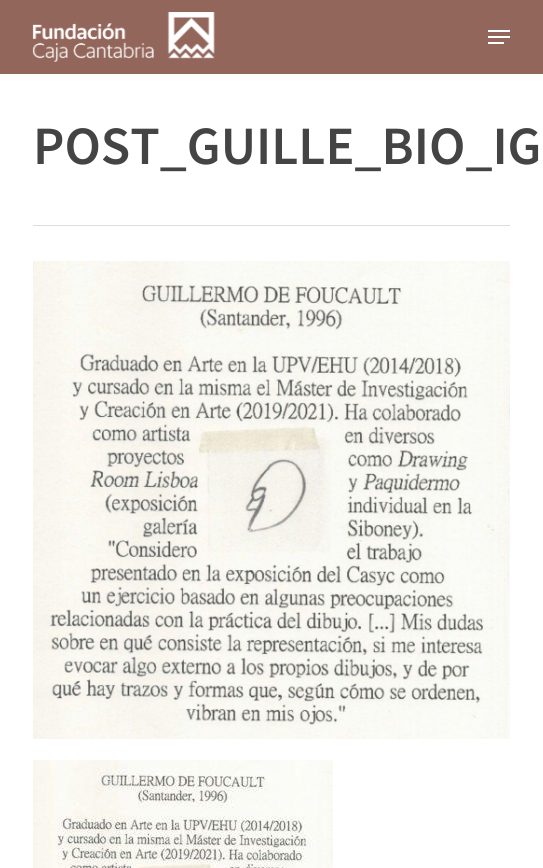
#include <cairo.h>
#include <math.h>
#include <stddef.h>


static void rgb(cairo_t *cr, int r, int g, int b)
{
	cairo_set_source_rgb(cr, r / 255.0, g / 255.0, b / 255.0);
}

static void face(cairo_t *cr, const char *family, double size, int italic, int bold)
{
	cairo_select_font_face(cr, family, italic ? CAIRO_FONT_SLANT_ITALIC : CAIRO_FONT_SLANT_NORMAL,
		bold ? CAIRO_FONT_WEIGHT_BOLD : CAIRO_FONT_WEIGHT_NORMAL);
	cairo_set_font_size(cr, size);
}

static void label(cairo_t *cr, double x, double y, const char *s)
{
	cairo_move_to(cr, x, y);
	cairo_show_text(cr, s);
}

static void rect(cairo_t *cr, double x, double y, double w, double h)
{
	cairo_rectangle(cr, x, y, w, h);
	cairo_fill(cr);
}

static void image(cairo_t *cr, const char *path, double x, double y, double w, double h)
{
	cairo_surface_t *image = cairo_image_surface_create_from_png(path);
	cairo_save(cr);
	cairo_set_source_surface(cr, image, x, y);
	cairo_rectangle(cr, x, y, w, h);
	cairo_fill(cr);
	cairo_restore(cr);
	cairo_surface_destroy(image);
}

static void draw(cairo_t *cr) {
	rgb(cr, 255, 255, 255);
	cairo_paint(cr);
	rgb(cr, 147, 102, 91);
	rect(cr, 0, 0, 543, 74);
	image(cr, "image0.png", 32, 12, 183, 50);
	rgb(cr, 255, 255, 255);
	rect(cr, 488, 30, 22, 2);
	rect(cr, 488, 42, 16, 2);
	rect(cr, 488, 36, 22, 2);
	rgb(cr, 221, 221, 221);
	rect(cr, 33, 225, 477, 1);
	face(cr, "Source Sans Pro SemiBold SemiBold", 54, 0, 0);
	rgb(cr, 68, 68, 68);
	label(cr, 33, 164, "POST_GUILLE_BIO_IG");
	image(cr, "image1.png", 33, 261, 477, 478);
	image(cr, "image2.png", 33, 760, 300, 108);
}

int main(void) {
	cairo_surface_t *surface = cairo_image_surface_create(CAIRO_FORMAT_RGB24, 543, 868);
	cairo_t *cr = cairo_create(surface);
	cairo_font_options_t *options = cairo_font_options_create();
	cairo_font_options_set_hint_metrics(options, CAIRO_HINT_METRICS_OFF);
	cairo_font_options_set_hint_style(options, CAIRO_HINT_STYLE_NONE);
	cairo_set_font_options(cr, options);
	cairo_set_miter_limit(cr, 4);
	draw(cr);
	cairo_surface_write_to_png(surface, "render.png");
	cairo_font_options_destroy(options);
	cairo_destroy(cr);
	cairo_surface_destroy(surface);
	return 0;
}
